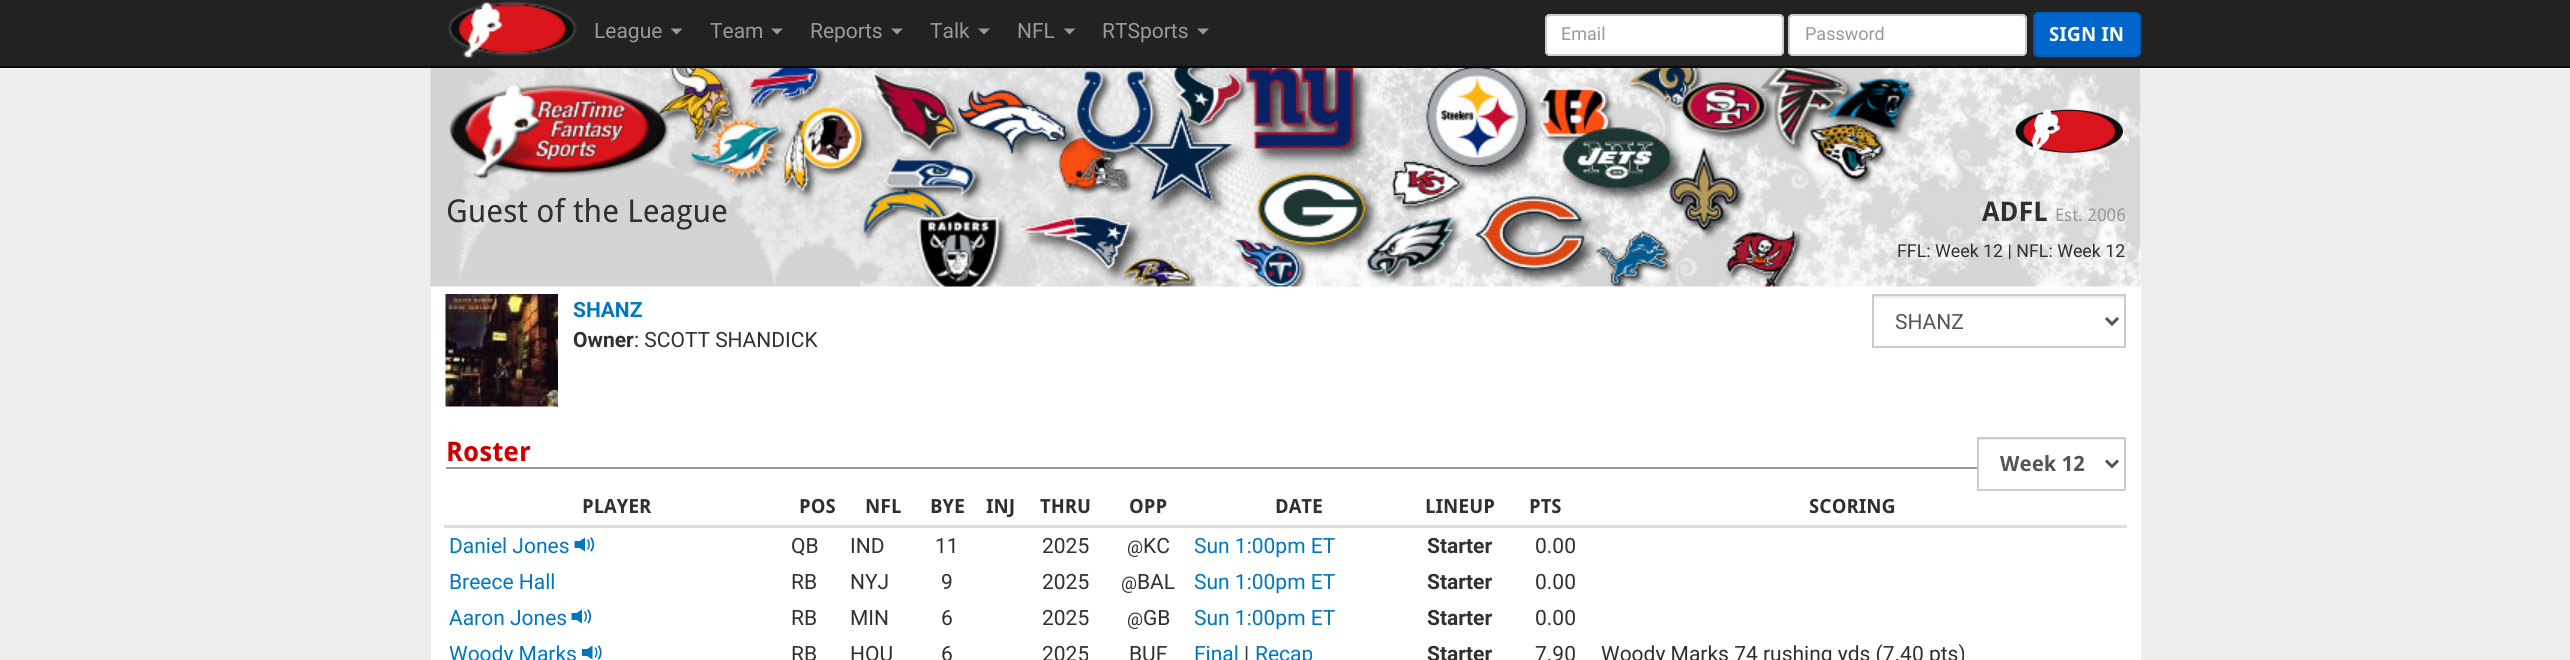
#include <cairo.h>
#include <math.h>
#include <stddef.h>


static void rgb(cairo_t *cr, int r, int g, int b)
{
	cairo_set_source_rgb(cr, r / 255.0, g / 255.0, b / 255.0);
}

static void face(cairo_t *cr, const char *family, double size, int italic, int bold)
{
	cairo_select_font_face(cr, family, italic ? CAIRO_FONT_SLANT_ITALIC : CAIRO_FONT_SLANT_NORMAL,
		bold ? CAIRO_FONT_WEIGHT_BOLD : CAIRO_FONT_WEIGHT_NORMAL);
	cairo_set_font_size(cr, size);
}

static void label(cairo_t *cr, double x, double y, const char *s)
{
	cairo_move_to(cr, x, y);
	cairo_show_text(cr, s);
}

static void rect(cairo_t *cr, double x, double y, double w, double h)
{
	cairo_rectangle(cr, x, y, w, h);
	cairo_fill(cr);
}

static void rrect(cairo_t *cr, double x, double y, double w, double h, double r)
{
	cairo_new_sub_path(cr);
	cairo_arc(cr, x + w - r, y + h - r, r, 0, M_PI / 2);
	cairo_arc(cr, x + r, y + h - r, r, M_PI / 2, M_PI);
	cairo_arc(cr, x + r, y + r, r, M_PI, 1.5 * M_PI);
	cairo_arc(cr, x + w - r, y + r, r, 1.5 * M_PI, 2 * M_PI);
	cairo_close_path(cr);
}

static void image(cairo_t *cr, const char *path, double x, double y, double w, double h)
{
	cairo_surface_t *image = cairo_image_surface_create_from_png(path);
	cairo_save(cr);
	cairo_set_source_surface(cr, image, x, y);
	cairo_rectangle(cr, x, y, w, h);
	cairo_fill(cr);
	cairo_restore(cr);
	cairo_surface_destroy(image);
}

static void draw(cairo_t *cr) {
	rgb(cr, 238, 238, 238);
	cairo_paint(cr);
	rgb(cr, 34, 34, 34);
	rect(cr, 0, 0, 2570, 66);
	rgb(cr, 8, 8, 8);
	rect(cr, 0, 66, 2570, 2);
	image(cr, "image0.png", 448, 1, 129, 58);
	face(cr, "Roboto", 21, 0, 0);
	rgb(cr, 153, 153, 153);
	label(cr, 594, 38, "League");
	cairo_new_path(cr);
	cairo_move_to(cr, 670.5, 28.5);
	cairo_line_to(cr, 682.5, 28.5);
	cairo_line_to(cr, 676.5, 34.5);
	cairo_close_path(cr);
	cairo_fill(cr);
	label(cr, 710, 38, "Team");
	cairo_new_path(cr);
	cairo_move_to(cr, 771, 28.5);
	cairo_line_to(cr, 783, 28.5);
	cairo_line_to(cr, 777, 34.5);
	cairo_close_path(cr);
	cairo_fill(cr);
	label(cr, 810, 38, "Reports");
	cairo_new_path(cr);
	cairo_move_to(cr, 891, 28.5);
	cairo_line_to(cr, 903, 28.5);
	cairo_line_to(cr, 897, 34.5);
	cairo_close_path(cr);
	cairo_fill(cr);
	label(cr, 930, 38, "Talk");
	cairo_new_path(cr);
	cairo_move_to(cr, 978, 28.5);
	cairo_line_to(cr, 990, 28.5);
	cairo_line_to(cr, 984, 34.5);
	cairo_close_path(cr);
	cairo_fill(cr);
	label(cr, 1017, 38, "NFL");
	cairo_new_path(cr);
	cairo_move_to(cr, 1063.5, 28.5);
	cairo_line_to(cr, 1075.5, 28.5);
	cairo_line_to(cr, 1069.5, 34.5);
	cairo_close_path(cr);
	cairo_fill(cr);
	label(cr, 1102, 38, "RTSports");
	cairo_new_path(cr);
	cairo_move_to(cr, 1197, 28.5);
	cairo_line_to(cr, 1209, 28.5);
	cairo_line_to(cr, 1203, 34.5);
	cairo_close_path(cr);
	cairo_fill(cr);
	rgb(cr, 255, 255, 255);
	rrect(cr, 1545, 14, 239, 42, 5);
	cairo_fill(cr);
	rgb(cr, 236, 236, 236);
	cairo_new_path(cr);
	cairo_move_to(cr, 1550, 16);
	cairo_line_to(cr, 1779, 16);
	cairo_curve_to(cr, 1781, 16, 1782, 18, 1782, 20);
	cairo_line_to(cr, 1782, 18);
	cairo_curve_to(cr, 1782, 16, 1781, 15, 1779, 15);
	cairo_line_to(cr, 1550, 15);
	cairo_curve_to(cr, 1549, 15, 1547, 16, 1547, 17);
	cairo_close_path(cr);
	cairo_fill(cr);
	rrect(cr, 1546, 15, 237, 40, 4);
	rgb(cr, 204, 204, 204);
	cairo_stroke(cr);
	face(cr, "Roboto", 18, 0, 0);
	rgb(cr, 153, 153, 153);
	label(cr, 1561, 40, "Email");
	rgb(cr, 255, 255, 255);
	rrect(cr, 1788, 14, 239, 42, 5);
	cairo_fill(cr);
	rgb(cr, 236, 236, 236);
	cairo_new_path(cr);
	cairo_move_to(cr, 1792, 16);
	cairo_line_to(cr, 2022, 16);
	cairo_curve_to(cr, 2024, 16, 2025, 18, 2025, 20);
	cairo_line_to(cr, 2025, 18);
	cairo_curve_to(cr, 2025, 16, 2024, 15, 2022, 15);
	cairo_line_to(cr, 1793, 15);
	cairo_curve_to(cr, 1791, 15, 1790, 16, 1790, 18);
	cairo_line_to(cr, 1790, 20);
	cairo_curve_to(cr, 1790, 18, 1791, 16, 1792, 16);
	cairo_close_path(cr);
	cairo_fill(cr);
	rrect(cr, 1789, 15, 237, 40, 4);
	rgb(cr, 204, 204, 204);
	cairo_stroke(cr);
	rgb(cr, 153, 153, 153);
	label(cr, 1805, 40, "Password");
	rgb(cr, 0, 102, 204);
	rrect(cr, 2034, 13, 106, 43, 4);
	cairo_fill_preserve(cr);
	rgb(cr, 0, 89, 179);
	cairo_stroke(cr);
	face(cr, "Droid Sans", 19.5, 0, 1);
	rgb(cr, 255, 255, 255);
	label(cr, 2049, 41, "SIGN IN");
	rect(cr, 431, 68, 1710, 592);
	image(cr, "image1.png", 430, 68, 1711, 219);
	image(cr, "image2.png", 449, 83, 221, 96);
	image(cr, "image3.png", 2015, 109, 108, 47);
	face(cr, "Droid Sans", 31.5, 0, 0);
	rgb(cr, 48, 48, 48);
	label(cr, 446, 222, "Guest of the League");
	face(cr, "Droid Sans", 27, 0, 1);
	label(cr, 1982, 221, "ADFL");
	face(cr, "Droid Sans", 17.5, 0, 0);
	rgb(cr, 153, 153, 153);
	label(cr, 2055, 221, "Est. 2006");
	face(cr, "Roboto", 17.8, 0, 0);
	rgb(cr, 48, 48, 48);
	label(cr, 1897, 257, "FFL: Week 12 | NFL: Week 12");
	image(cr, "image4.png", 445, 294, 113, 113);
	face(cr, "Roboto", 21, 0, 1);
	rgb(cr, 0, 119, 192);
	label(cr, 573, 317, "SHANZ");
	rgb(cr, 48, 48, 48);
	label(cr, 573, 347, "Owner");
	face(cr, "Roboto", 21, 0, 0);
	label(cr, 634, 347, ": SCOTT SHANDICK");
	rgb(cr, 236, 236, 236);
	rect(cr, 1874, 296, 250, 2);
	cairo_rectangle(cr, 1873, 295, 252, 52);
	rgb(cr, 204, 204, 204);
	cairo_stroke(cr);
	cairo_new_path(cr);
	cairo_move_to(cr, 2106, 318);
	cairo_line_to(cr, 2112, 324);
	cairo_line_to(cr, 2118, 318);
	rgb(cr, 85, 85, 85);
	cairo_set_line_width(cr, 3);
	cairo_stroke(cr);
	label(cr, 1895, 329, "SHANZ");
	rgb(cr, 153, 153, 153);
	rect(cr, 446, 467, 1531, 2);
	face(cr, "Droid Sans", 27, 0, 1);
	rgb(cr, 204, 0, 0);
	label(cr, 446, 461, "Roster");
	rgb(cr, 236, 236, 236);
	rect(cr, 1979, 439, 145, 1);
	cairo_rectangle(cr, 1978, 438, 147, 52);
	rgb(cr, 204, 204, 204);
	cairo_set_line_width(cr, 2);
	cairo_stroke(cr);
	cairo_new_path(cr);
	cairo_move_to(cr, 2106, 460.5);
	cairo_line_to(cr, 2112, 466.5);
	cairo_line_to(cr, 2118, 460.5);
	rgb(cr, 85, 85, 85);
	cairo_set_line_width(cr, 3);
	cairo_stroke(cr);
	face(cr, "Droid Sans", 21, 0, 1);
	label(cr, 2000, 471, "Week 12");
	face(cr, "Droid Sans", 19.5, 0, 1);
	rgb(cr, 48, 48, 48);
	label(cr, 582, 513, "PLAYER");
	label(cr, 799, 513, "POS");
	label(cr, 865, 513, "NFL");
	label(cr, 930, 513, "BYE");
	label(cr, 986, 513, "INJ");
	label(cr, 1040, 513, "THRU");
	label(cr, 1129, 513, "OPP");
	label(cr, 1275, 513, "DATE");
	label(cr, 1425, 513, "LINEUP");
	label(cr, 1529, 513, "PTS");
	label(cr, 1809, 513, "SCORING");
	rgb(cr, 221, 221, 221);
	rect(cr, 444, 525, 1683, 3);
	face(cr, "Roboto", 21, 0, 0);
	rgb(cr, 0, 119, 192);
	label(cr, 449, 553, "Daniel Jones");
	image(cr, "image5.png", 574, 537, 21, 15);
	rgb(cr, 48, 48, 48);
	label(cr, 791, 553, "QB");
	label(cr, 850, 553, "IND");
	label(cr, 935, 553, "11");
	label(cr, 1042, 553, "2025");
	face(cr, "Roboto", 17.8, 0, 0);
	label(cr, 1127, 553, "@");
	face(cr, "Roboto", 21, 0, 0);
	label(cr, 1143, 553, "KC");
	rgb(cr, 0, 119, 192);
	label(cr, 1194, 553, "Sun 1:00pm ET");
	face(cr, "Roboto", 21, 0, 1);
	rgb(cr, 48, 48, 48);
	label(cr, 1427, 553, "Starter");
	face(cr, "Roboto", 21, 0, 0);
	label(cr, 1535, 553, "0.00");
	rgb(cr, 0, 119, 192);
	label(cr, 449, 589, "Breece Hall");
	rgb(cr, 48, 48, 48);
	label(cr, 791, 589, "RB");
	label(cr, 850, 589, "NYJ");
	label(cr, 941, 589, "9");
	label(cr, 1042, 589, "2025");
	face(cr, "Roboto", 17.8, 0, 0);
	label(cr, 1121, 589, "@");
	face(cr, "Roboto", 21, 0, 0);
	label(cr, 1137, 589, "BAL");
	rgb(cr, 0, 119, 192);
	label(cr, 1194, 589, "Sun 1:00pm ET");
	face(cr, "Roboto", 21, 0, 1);
	rgb(cr, 48, 48, 48);
	label(cr, 1427, 589, "Starter");
	face(cr, "Roboto", 21, 0, 0);
	label(cr, 1535, 589, "0.00");
	rgb(cr, 0, 119, 192);
	label(cr, 449, 625, "Aaron Jones");
	image(cr, "image5.png", 571, 609, 21, 15);
	rgb(cr, 48, 48, 48);
	label(cr, 791, 625, "RB");
	label(cr, 850, 625, "MIN");
	label(cr, 941, 625, "6");
	label(cr, 1042, 625, "2025");
	face(cr, "Roboto", 17.8, 0, 0);
	label(cr, 1127, 625, "@");
	face(cr, "Roboto", 21, 0, 0);
	label(cr, 1143, 625, "GB");
	rgb(cr, 0, 119, 192);
	label(cr, 1194, 625, "Sun 1:00pm ET");
	face(cr, "Roboto", 21, 0, 1);
	rgb(cr, 48, 48, 48);
	label(cr, 1427, 625, "Starter");
	face(cr, "Roboto", 21, 0, 0);
	label(cr, 1535, 625, "0.00");
	rgb(cr, 0, 119, 192);
	label(cr, 449, 661, "Woody Marks");
	image(cr, "image6.png", 582, 645, 20, 15);
	rgb(cr, 48, 48, 48);
	label(cr, 791, 661, "RB");
	label(cr, 850, 661, "HOU");
	label(cr, 941, 661, "6");
	label(cr, 1042, 661, "2025");
	label(cr, 1129, 661, "BUF");
	rgb(cr, 0, 119, 192);
	label(cr, 1194, 661, "Final");
	rgb(cr, 48, 48, 48);
	label(cr, 1244, 661, "|");
	rgb(cr, 0, 119, 192);
	label(cr, 1255, 661, "Recap");
	face(cr, "Roboto", 21, 0, 1);
	rgb(cr, 48, 48, 48);
	label(cr, 1427, 661, "Starter");
	face(cr, "Roboto", 21, 0, 0);
	label(cr, 1535, 661, "7.90");
	label(cr, 1601, 661, "Woody Marks 74 rushing yds (7.40 pts)");
}

int main(void) {
	cairo_surface_t *surface = cairo_image_surface_create(CAIRO_FORMAT_RGB24, 2570, 660);
	cairo_t *cr = cairo_create(surface);
	cairo_font_options_t *options = cairo_font_options_create();
	cairo_font_options_set_hint_metrics(options, CAIRO_HINT_METRICS_OFF);
	cairo_font_options_set_hint_style(options, CAIRO_HINT_STYLE_NONE);
	cairo_set_font_options(cr, options);
	cairo_set_miter_limit(cr, 4);
	draw(cr);
	cairo_surface_write_to_png(surface, "render.png");
	cairo_font_options_destroy(options);
	cairo_destroy(cr);
	cairo_surface_destroy(surface);
	return 0;
}
